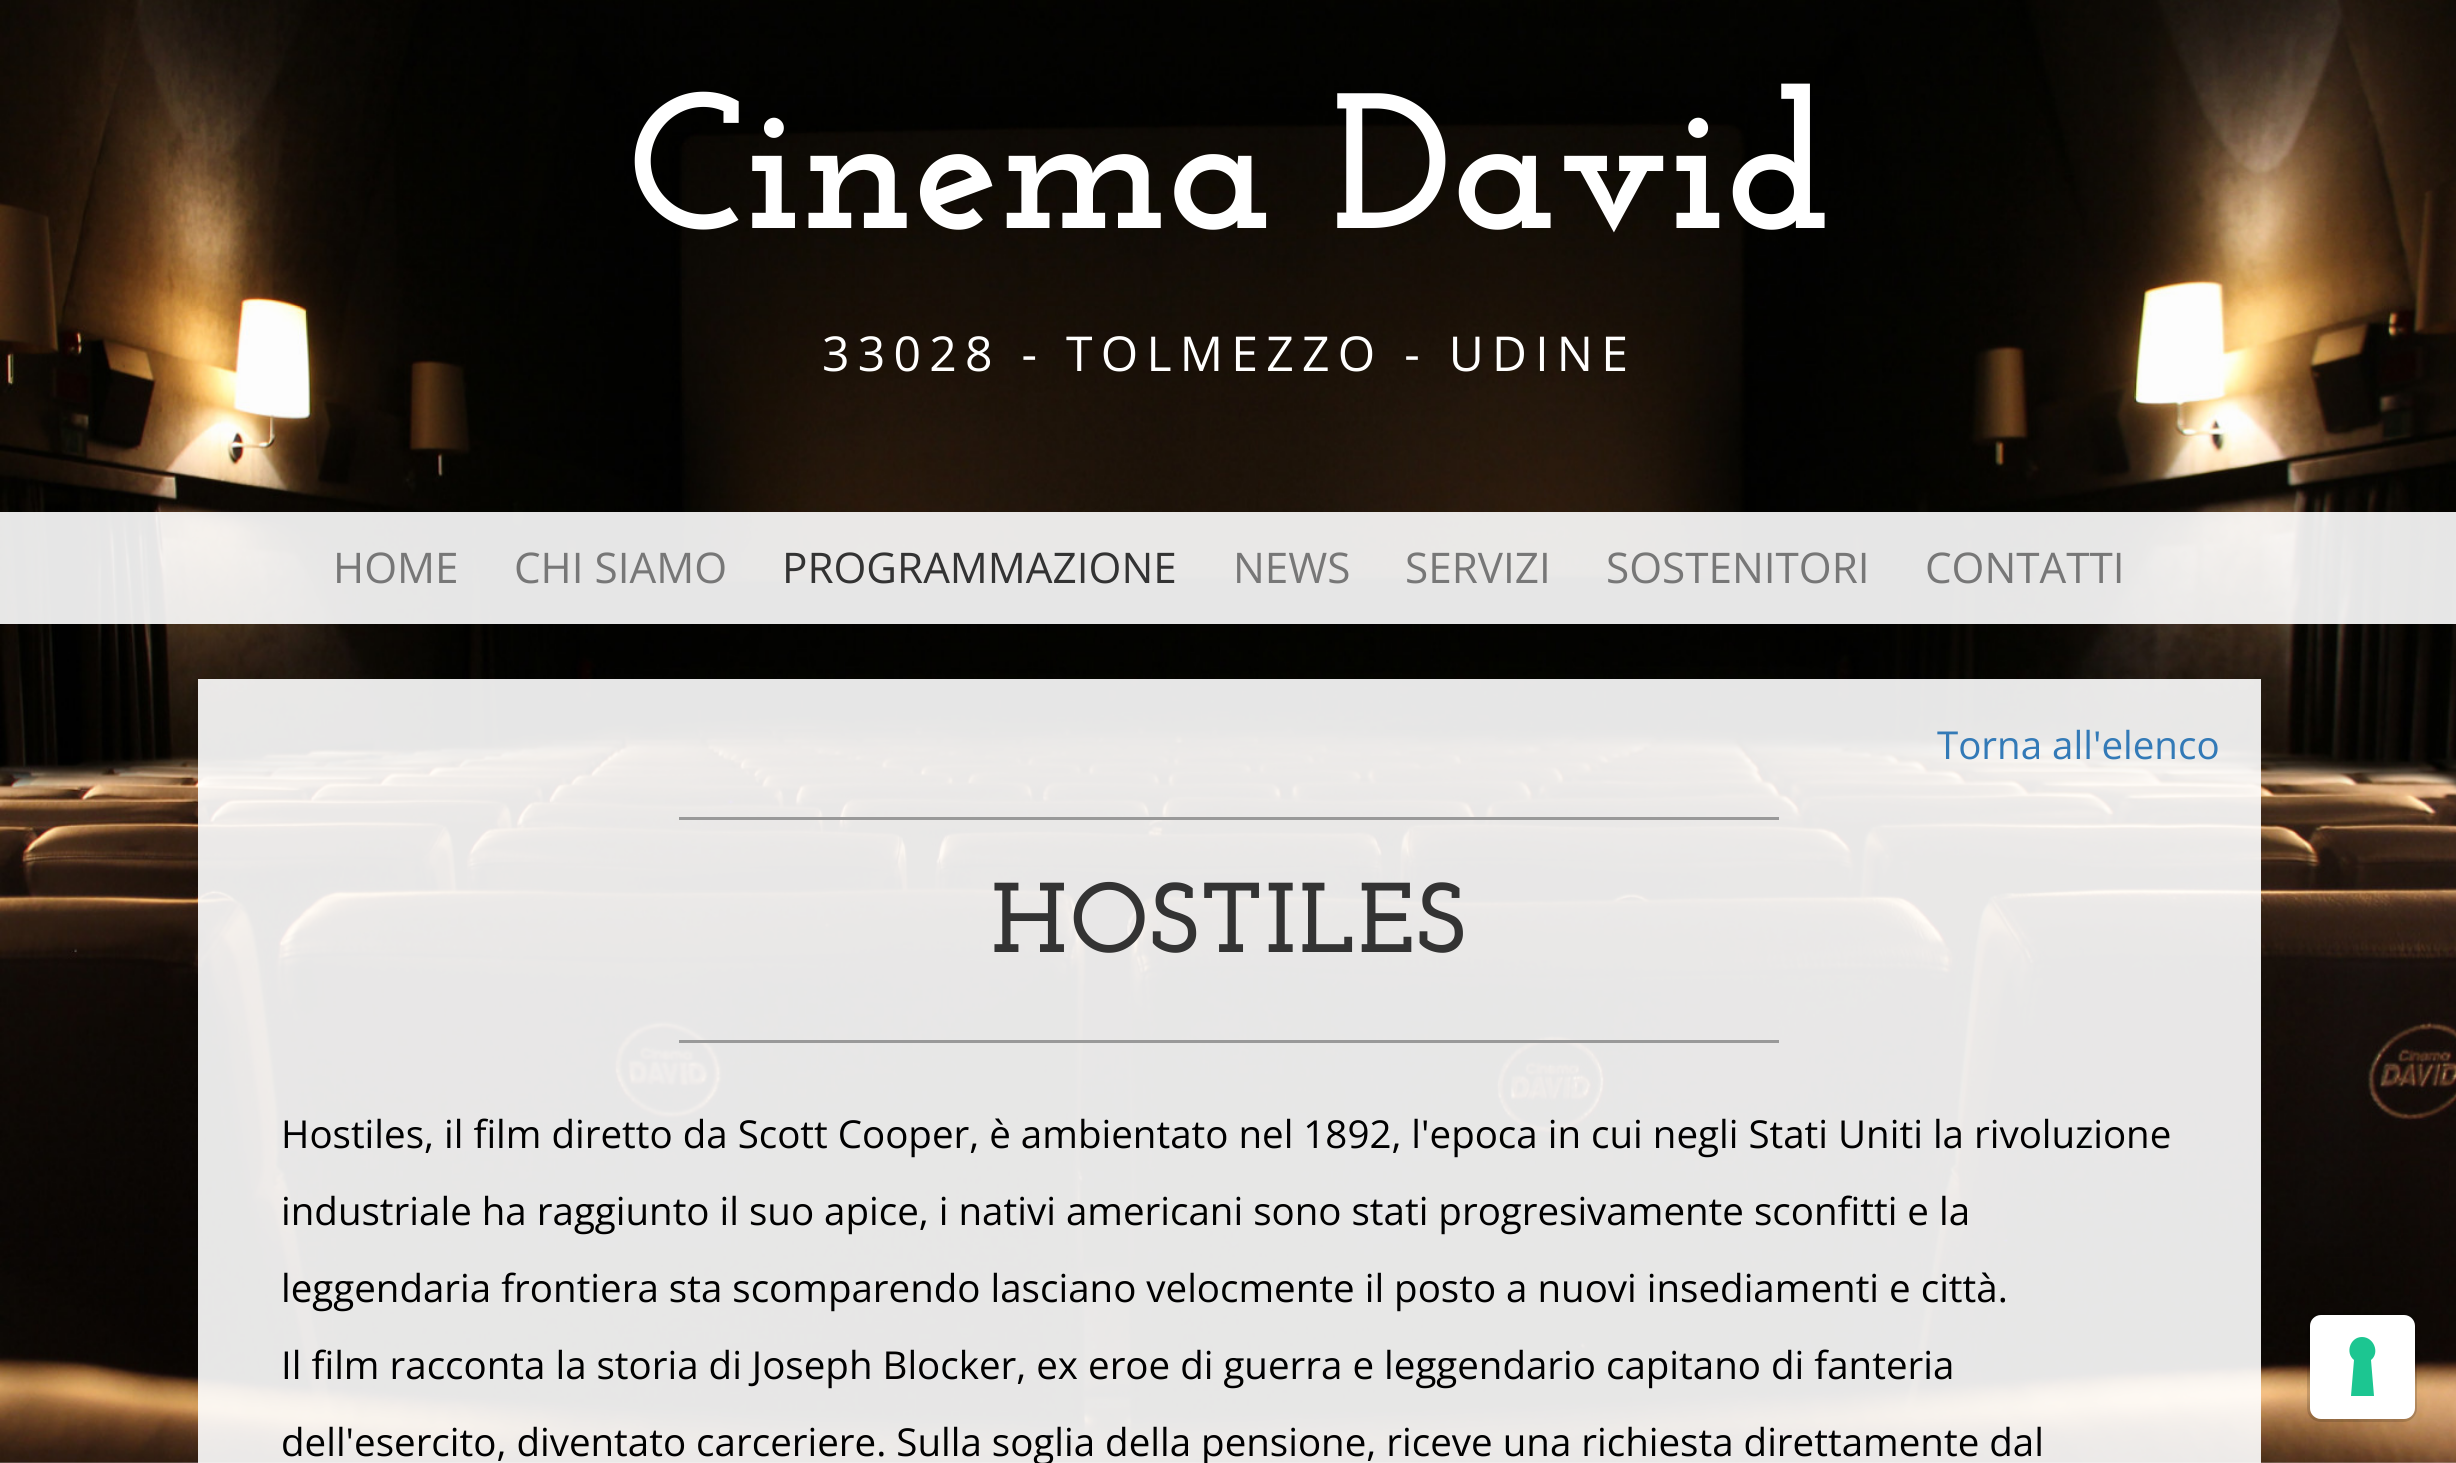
#include <cairo.h>
#include <math.h>
#include <stddef.h>


static void rgb(cairo_t *cr, int r, int g, int b)
{
	cairo_set_source_rgb(cr, r / 255.0, g / 255.0, b / 255.0);
}

static void face(cairo_t *cr, const char *family, double size, int italic, int bold)
{
	cairo_select_font_face(cr, family, italic ? CAIRO_FONT_SLANT_ITALIC : CAIRO_FONT_SLANT_NORMAL,
		bold ? CAIRO_FONT_WEIGHT_BOLD : CAIRO_FONT_WEIGHT_NORMAL);
	cairo_set_font_size(cr, size);
}

static void label(cairo_t *cr, double x, double y, const char *s)
{
	cairo_move_to(cr, x, y);
	cairo_show_text(cr, s);
}

static void tracked(cairo_t *cr, double x, double y, const char *s, double letter, double word)
{
	cairo_move_to(cr, x, y);
	while (*s) {
		char ch[5] = {0};
		int n = 0;
		do ch[n++] = *s++; while ((*s & 0xC0) == 0x80);
		cairo_show_text(cr, ch);
		cairo_rel_move_to(cr, letter + word * (*ch == ' '), 0);
	}
}

static void rect(cairo_t *cr, double x, double y, double w, double h)
{
	cairo_rectangle(cr, x, y, w, h);
	cairo_fill(cr);
}

static void rrect(cairo_t *cr, double x, double y, double w, double h, double r)
{
	cairo_new_sub_path(cr);
	cairo_arc(cr, x + w - r, y + h - r, r, 0, M_PI / 2);
	cairo_arc(cr, x + r, y + h - r, r, M_PI / 2, M_PI);
	cairo_arc(cr, x + r, y + r, r, M_PI, 1.5 * M_PI);
	cairo_arc(cr, x + w - r, y + r, r, 1.5 * M_PI, 2 * M_PI);
	cairo_close_path(cr);
}

static void image(cairo_t *cr, const char *path, double x, double y, double w, double h)
{
	cairo_surface_t *image = cairo_image_surface_create_from_png(path);
	cairo_save(cr);
	cairo_set_source_surface(cr, image, x, y);
	cairo_rectangle(cr, x, y, w, h);
	cairo_fill(cr);
	cairo_restore(cr);
	cairo_surface_destroy(image);
}

static void draw(cairo_t *cr) {
	rgb(cr, 255, 255, 255);
	cairo_paint(cr);
	image(cr, "image0.png", 0, 0, 2456, 1463);
	face(cr, "Josefin Slab", 192.5, 0, 1);
	rgb(cr, 255, 255, 255);
	label(cr, 628, 228, "Cinema David");
	face(cr, "Open Sans", 48.1, 0, 0);
	tracked(cr, 822, 371, "33028 - TOLMEZZO - UDINE", 8.25, 0);
	cairo_set_source_rgba(cr, 1, 1, 1, 0.9);
	rect(cr, 0, 512, 2456, 112);
	face(cr, "Open Sans", 42.25, 0, 0);
	rgb(cr, 119, 119, 119);
	label(cr, 333, 583, "HOME");
	label(cr, 514, 583, "CHI SIAMO");
	rgb(cr, 51, 51, 51);
	label(cr, 782, 583, "PROGRAMMAZIONE");
	rgb(cr, 119, 119, 119);
	label(cr, 1233, 583, "NEWS");
	label(cr, 1405, 583, "SERVIZI");
	label(cr, 1606, 583, "SOSTENITORI");
	label(cr, 1925, 583, "CONTATTI");
	cairo_set_source_rgba(cr, 1, 1, 1, 0.9);
	rect(cr, 198, 679, 2063, 784);
	face(cr, "Open Sans", 38.5, 0, 0);
	rgb(cr, 51, 122, 183);
	label(cr, 1937, 759, "Torna all'elenco");
	rgb(cr, 153, 153, 153);
	rect(cr, 679, 817, 1100, 3);
	face(cr, "Josefin Slab", 99, 0, 1);
	rgb(cr, 51, 51, 51);
	tracked(cr, 991, 952, "HOSTILES", 2.75, 0);
	rgb(cr, 153, 153, 153);
	rect(cr, 679, 1040, 1100, 3);
	face(cr, "Open Sans", 38.5, 0, 0);
	rgb(cr, 0, 0, 0);
	label(cr, 281, 1148, "Hostiles, il film diretto da Scott Cooper, è ambientato nel 1892, l'epoca in cui negli Stati Uniti la rivoluzione");
	label(cr, 281, 1225, "industriale ha raggiunto il suo apice, i nativi americani sono stati progresivamente sconfitti e la");
	label(cr, 281, 1302, "leggendaria frontiera sta scomparendo lasciano velocmente il posto a nuovi insediamenti e città.");
	label(cr, 281, 1379, "Il film racconta la storia di Joseph Blocker, ex eroe di guerra e leggendario capitano di fanteria");
	label(cr, 281, 1456, "dell'esercito, diventato carceriere. Sulla soglia della pensione, riceve una richiesta direttamente dal");
	rrect(cr, 2308.5, 1313.5, 107, 107, 12.5);
	cairo_set_source_rgba(cr, 0, 0, 0, 0.15);
	cairo_set_line_width(cr, 3);
	cairo_stroke(cr);
	rgb(cr, 255, 255, 255);
	rrect(cr, 2310, 1315, 105, 104, 11);
	cairo_fill(cr);
	rgb(cr, 28, 198, 145);
	cairo_set_fill_rule(cr, CAIRO_FILL_RULE_EVEN_ODD);
	cairo_new_path(cr);
	cairo_move_to(cr, 2362, 1337);
	cairo_curve_to(cr, 2374, 1337, 2380, 1353, 2371, 1360);
	cairo_line_to(cr, 2374, 1396);
	cairo_line_to(cr, 2351, 1396);
	cairo_line_to(cr, 2354, 1360);
	cairo_curve_to(cr, 2345, 1353, 2350, 1337, 2362, 1337);
	cairo_close_path(cr);
	cairo_fill(cr);
}

int main(void) {
	cairo_surface_t *surface = cairo_image_surface_create(CAIRO_FORMAT_RGB24, 2456, 1463);
	cairo_t *cr = cairo_create(surface);
	cairo_font_options_t *options = cairo_font_options_create();
	cairo_font_options_set_hint_metrics(options, CAIRO_HINT_METRICS_OFF);
	cairo_font_options_set_hint_style(options, CAIRO_HINT_STYLE_NONE);
	cairo_set_font_options(cr, options);
	cairo_set_miter_limit(cr, 4);
	draw(cr);
	cairo_surface_write_to_png(surface, "render.png");
	cairo_font_options_destroy(options);
	cairo_destroy(cr);
	cairo_surface_destroy(surface);
	return 0;
}
